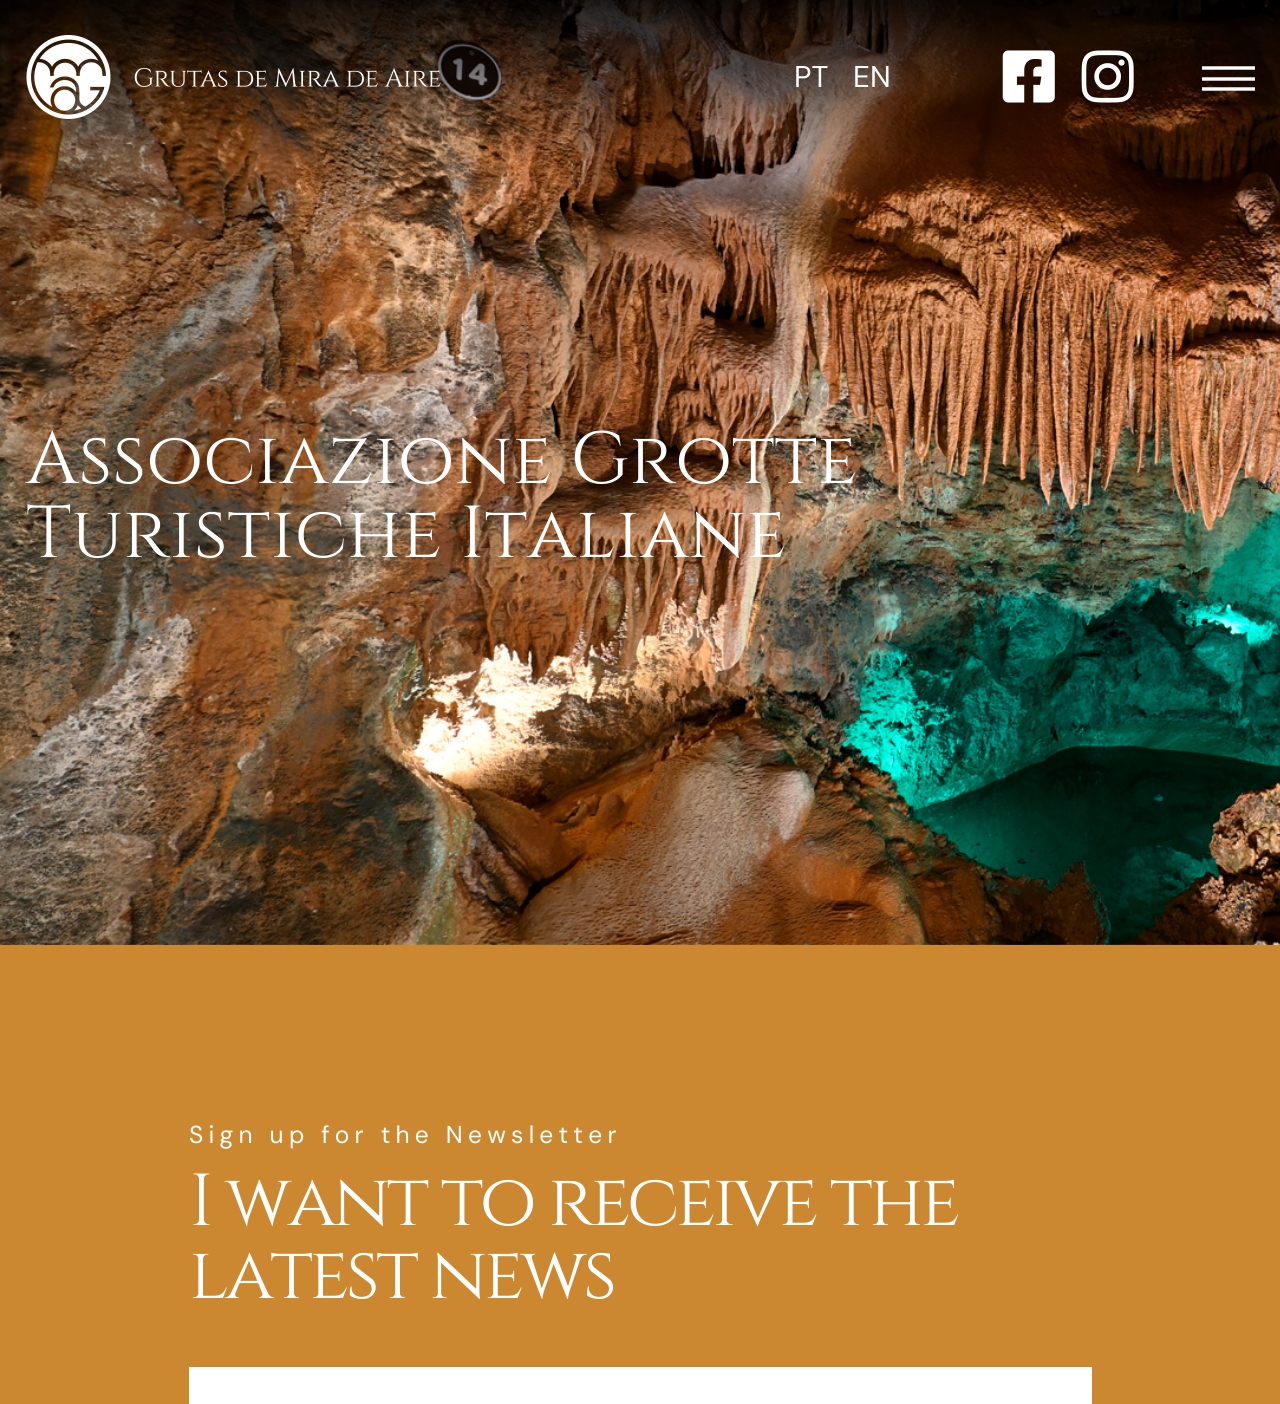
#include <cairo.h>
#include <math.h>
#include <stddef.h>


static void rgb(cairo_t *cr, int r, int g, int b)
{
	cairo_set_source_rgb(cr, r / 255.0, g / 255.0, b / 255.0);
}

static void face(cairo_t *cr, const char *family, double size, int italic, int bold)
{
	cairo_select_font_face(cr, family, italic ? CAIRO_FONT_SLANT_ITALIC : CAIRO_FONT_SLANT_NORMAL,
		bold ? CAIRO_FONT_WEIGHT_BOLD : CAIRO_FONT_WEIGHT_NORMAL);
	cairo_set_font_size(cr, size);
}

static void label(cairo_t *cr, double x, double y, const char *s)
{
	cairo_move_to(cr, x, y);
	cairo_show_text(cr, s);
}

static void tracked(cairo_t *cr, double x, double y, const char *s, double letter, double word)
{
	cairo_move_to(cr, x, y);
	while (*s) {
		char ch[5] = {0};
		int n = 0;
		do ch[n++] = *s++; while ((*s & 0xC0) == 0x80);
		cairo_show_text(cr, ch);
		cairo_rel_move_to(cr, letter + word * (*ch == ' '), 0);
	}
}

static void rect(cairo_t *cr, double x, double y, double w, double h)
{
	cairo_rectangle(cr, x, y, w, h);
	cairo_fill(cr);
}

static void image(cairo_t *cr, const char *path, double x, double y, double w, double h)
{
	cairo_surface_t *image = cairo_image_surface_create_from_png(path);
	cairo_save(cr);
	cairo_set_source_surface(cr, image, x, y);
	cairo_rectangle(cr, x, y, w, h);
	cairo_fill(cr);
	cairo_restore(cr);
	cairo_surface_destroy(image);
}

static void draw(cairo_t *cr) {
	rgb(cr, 255, 255, 255);
	cairo_paint(cr);
	image(cr, "image3.png", 0, 0, 1280, 945);
	image(cr, "image0.png", 26, 35, 415, 84);
	face(cr, "DM Sans", 30, 0, 0);
	rgb(cr, 255, 255, 255);
	label(cr, 794, 87, "PT");
	label(cr, 853, 87, "EN");
	image(cr, "image1.png", 1002, 50, 53, 53);
	image(cr, "image2.png", 1081, 50, 53, 53);
	cairo_save(cr);
	cairo_rectangle(cr, 1202, 53, 53, 52);
	cairo_clip(cr);
	cairo_new_path(cr);
	cairo_move_to(cr, 1202, 68);
	cairo_line_to(cr, 1255, 68);
	cairo_move_to(cr, 1202, 79);
	cairo_line_to(cr, 1255, 79);
	cairo_move_to(cr, 1202, 89);
	cairo_line_to(cr, 1255, 89);
	cairo_set_line_width(cr, 3.5);
	cairo_set_line_cap(cr, CAIRO_LINE_CAP_ROUND);
	cairo_stroke(cr);
	cairo_restore(cr);
	face(cr, "Cinzel", 73.5, 0, 0);
	label(cr, 26, 483, "Associazione Grotte");
	label(cr, 26, 557, "Turistiche Italiane");
	rgb(cr, 204, 136, 49);
	rect(cr, 0, 945, 1280, 459);
	face(cr, "DM Sans", 24.5, 0, 0);
	rgb(cr, 255, 255, 255);
	tracked(cr, 189, 1143, "Sign up for the Newsletter", 5.25, 0);
	face(cr, "Cinzel", 73.5, 0, 0);
	tracked(cr, 189, 1225, "I want to receive the", -3.5, 0);
	tracked(cr, 189, 1298, "latest news", -3.5, 0);
	rect(cr, 189, 1367, 903, 37);
}

int main(void) {
	cairo_surface_t *surface = cairo_image_surface_create(CAIRO_FORMAT_RGB24, 1280, 1404);
	cairo_t *cr = cairo_create(surface);
	cairo_font_options_t *options = cairo_font_options_create();
	cairo_font_options_set_hint_metrics(options, CAIRO_HINT_METRICS_OFF);
	cairo_font_options_set_hint_style(options, CAIRO_HINT_STYLE_NONE);
	cairo_set_font_options(cr, options);
	cairo_set_miter_limit(cr, 4);
	draw(cr);
	cairo_surface_write_to_png(surface, "render.png");
	cairo_font_options_destroy(options);
	cairo_destroy(cr);
	cairo_surface_destroy(surface);
	return 0;
}
